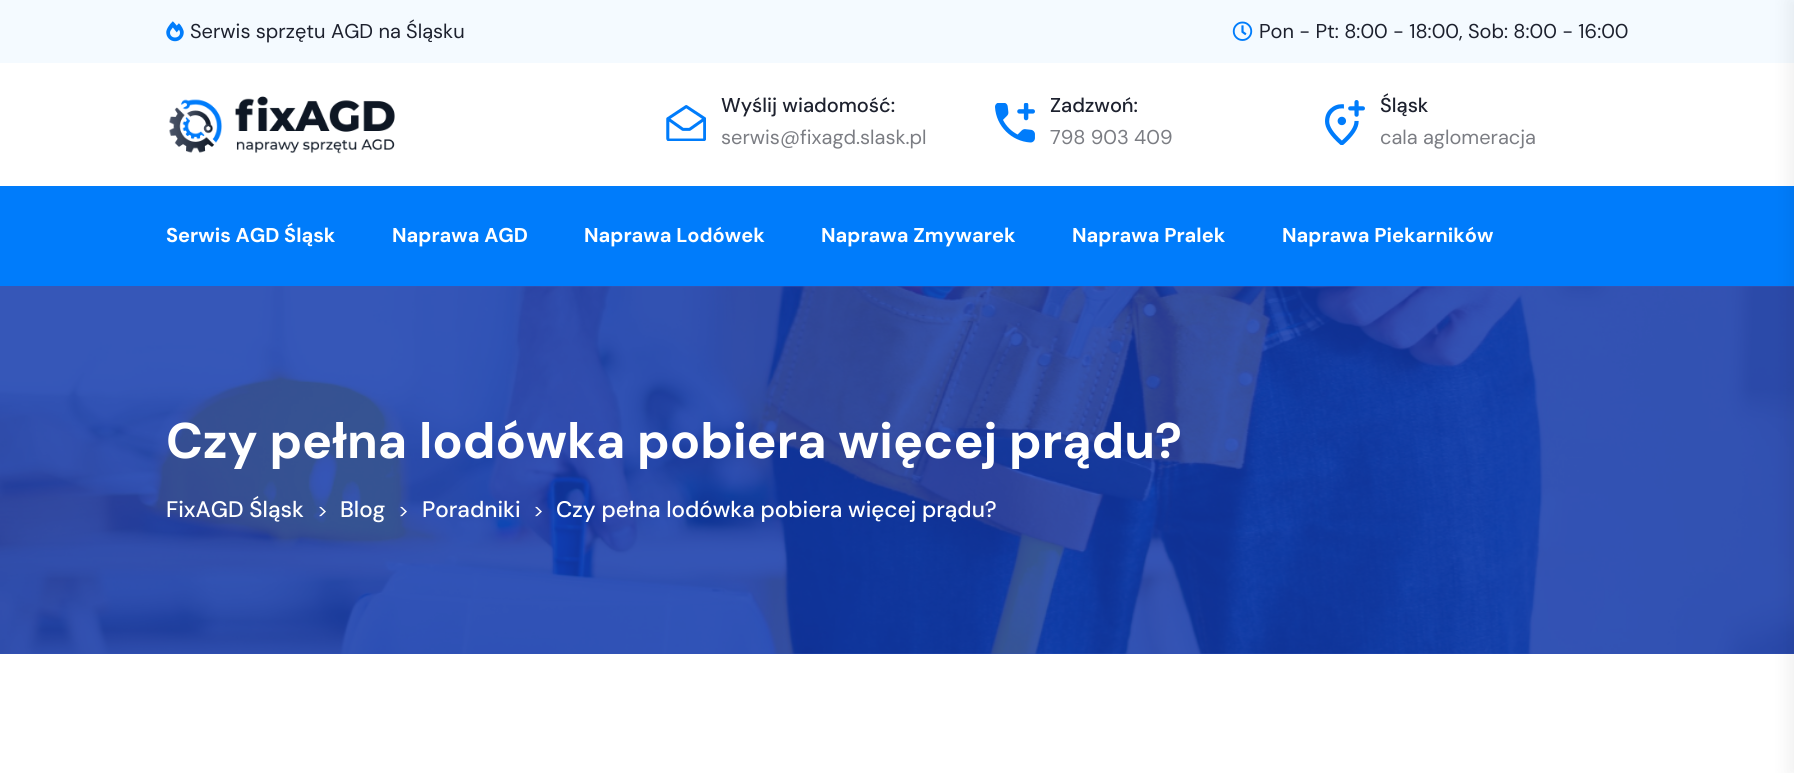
#include <cairo.h>
#include <math.h>
#include <stddef.h>


static void rgb(cairo_t *cr, int r, int g, int b)
{
	cairo_set_source_rgb(cr, r / 255.0, g / 255.0, b / 255.0);
}

static void face(cairo_t *cr, const char *family, double size, int italic, int bold)
{
	cairo_select_font_face(cr, family, italic ? CAIRO_FONT_SLANT_ITALIC : CAIRO_FONT_SLANT_NORMAL,
		bold ? CAIRO_FONT_WEIGHT_BOLD : CAIRO_FONT_WEIGHT_NORMAL);
	cairo_set_font_size(cr, size);
}

static void label(cairo_t *cr, double x, double y, const char *s)
{
	cairo_move_to(cr, x, y);
	cairo_show_text(cr, s);
}

static void rect(cairo_t *cr, double x, double y, double w, double h)
{
	cairo_rectangle(cr, x, y, w, h);
	cairo_fill(cr);
}

static void rrect(cairo_t *cr, double x, double y, double w, double h, double r)
{
	cairo_new_sub_path(cr);
	cairo_arc(cr, x + w - r, y + h - r, r, 0, M_PI / 2);
	cairo_arc(cr, x + r, y + h - r, r, M_PI / 2, M_PI);
	cairo_arc(cr, x + r, y + r, r, M_PI, 1.5 * M_PI);
	cairo_arc(cr, x + w - r, y + r, r, 1.5 * M_PI, 2 * M_PI);
	cairo_close_path(cr);
}

static void soft_shadow(cairo_t *cr, double x, double y, double w, double h, double r, double blur, double alpha)
{
	cairo_push_group_with_content(cr, CAIRO_CONTENT_ALPHA);
	cairo_set_operator(cr, CAIRO_OPERATOR_SOURCE);
	for (int i = 15; i >= -15 && fmin(w, h) + blur * i / 3 > 0; i -= 2) {
		double e = blur * i / 6;
		cairo_set_source_rgba(cr, 0, 0, 0, alpha * erfc((i - 1) / 8.5) / 2);
		rrect(cr, x - e, y - e, w + 2 * e, h + 2 * e, fmax(0, fmin(r + e + blur * .6, fmin(w, h) / 2 + e)));
		cairo_fill(cr);
	}
	cairo_pattern_t *soft = cairo_pop_group(cr);
	cairo_mask(cr, soft);
	cairo_pattern_destroy(soft);
}

static void image(cairo_t *cr, const char *path, double x, double y, double w, double h)
{
	cairo_surface_t *image = cairo_image_surface_create_from_png(path);
	cairo_save(cr);
	cairo_set_source_surface(cr, image, x, y);
	cairo_rectangle(cr, x, y, w, h);
	cairo_fill(cr);
	cairo_restore(cr);
	cairo_surface_destroy(image);
}

static void draw(cairo_t *cr) {
	rgb(cr, 255, 255, 255);
	cairo_paint(cr);
	rgb(cr, 54, 87, 184);
	rect(cr, 0, 286, 1794, 368);
	rgb(cr, 244, 250, 255);
	rect(cr, 0, 0, 1794, 63);
	image(cr, "image0.png", 166, 21, 18, 21);
	face(cr, "DM Sans", 20, 0, 0);
	rgb(cr, 29, 33, 46);
	label(cr, 190, 38, "Serwis sprzętu AGD na Śląsku");
	image(cr, "image1.png", 1232, 21, 21, 20);
	label(cr, 1259, 38, "Pon - Pt: 8:00 - 18:00, Sob: 8:00 - 16:00");
	image(cr, "image2.png", 169, 96, 226, 58);
	image(cr, "image3.png", 666, 105, 40, 36);
	face(cr, "DM Sans Medium", 20, 0, 0);
	label(cr, 721, 112, "Wyślij wiadomość:");
	face(cr, "DM Sans", 20, 0, 0);
	rgb(cr, 123, 125, 131);
	label(cr, 721, 144, "serwis@fixagd.slask.pl");
	image(cr, "image4.png", 995, 103, 40, 40);
	face(cr, "DM Sans Medium", 20, 0, 0);
	rgb(cr, 29, 33, 46);
	label(cr, 1050, 112, "Zadzwoń:");
	face(cr, "DM Sans", 20, 0, 0);
	rgb(cr, 123, 125, 131);
	label(cr, 1050, 144, "798 903 409");
	image(cr, "image5.png", 1325, 100, 40, 45);
	face(cr, "DM Sans Medium", 20, 0, 0);
	rgb(cr, 29, 33, 46);
	label(cr, 1380, 112, "Śląsk");
	face(cr, "DM Sans", 20, 0, 0);
	rgb(cr, 123, 125, 131);
	label(cr, 1380, 144, "cala aglomeracja");
	rgb(cr, 0, 124, 251);
	rect(cr, 0, 186, 1794, 100);
	face(cr, "DM Sans", 20, 0, 1);
	rgb(cr, 255, 255, 255);
	label(cr, 166, 242, "Serwis AGD Śląsk");
	label(cr, 392, 242, "Naprawa AGD");
	label(cr, 584, 242, "Naprawa Lodówek");
	label(cr, 821, 242, "Naprawa Zmywarek");
	label(cr, 1072, 242, "Naprawa Pralek");
	label(cr, 1282, 242, "Naprawa Piekarników");
	image(cr, "image6.png", 0, 286, 1794, 368);
	rgb(cr, 0, 0, 0);
	soft_shadow(cr, 1788, 0, 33, 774, 0, 9, 0.06);
	face(cr, "DM Sans", 50, 0, 1);
	rgb(cr, 255, 255, 255);
	label(cr, 166, 458, "Czy pełna lodówka pobiera więcej prądu?");
	face(cr, "DM Sans Medium", 22.5, 0, 0);
	label(cr, 166, 517, "FixAGD Śląsk");
	face(cr, "DM Sans", 20, 0, 0);
	label(cr, 317, 517, ">");
	face(cr, "DM Sans Medium", 22.5, 0, 0);
	label(cr, 340, 517, "Blog");
	face(cr, "DM Sans", 20, 0, 0);
	label(cr, 398, 517, ">");
	face(cr, "DM Sans Medium", 22.5, 0, 0);
	label(cr, 422, 517, "Poradniki");
	face(cr, "DM Sans", 20, 0, 0);
	label(cr, 533, 517, ">");
	face(cr, "DM Sans Medium", 22.5, 0, 0);
	label(cr, 556, 517, "Czy pełna lodówka pobiera więcej prądu?");
}

int main(void) {
	cairo_surface_t *surface = cairo_image_surface_create(CAIRO_FORMAT_RGB24, 1794, 773);
	cairo_t *cr = cairo_create(surface);
	cairo_font_options_t *options = cairo_font_options_create();
	cairo_font_options_set_hint_metrics(options, CAIRO_HINT_METRICS_OFF);
	cairo_font_options_set_hint_style(options, CAIRO_HINT_STYLE_NONE);
	cairo_set_font_options(cr, options);
	cairo_set_miter_limit(cr, 4);
	draw(cr);
	cairo_surface_write_to_png(surface, "render.png");
	cairo_font_options_destroy(options);
	cairo_destroy(cr);
	cairo_surface_destroy(surface);
	return 0;
}
